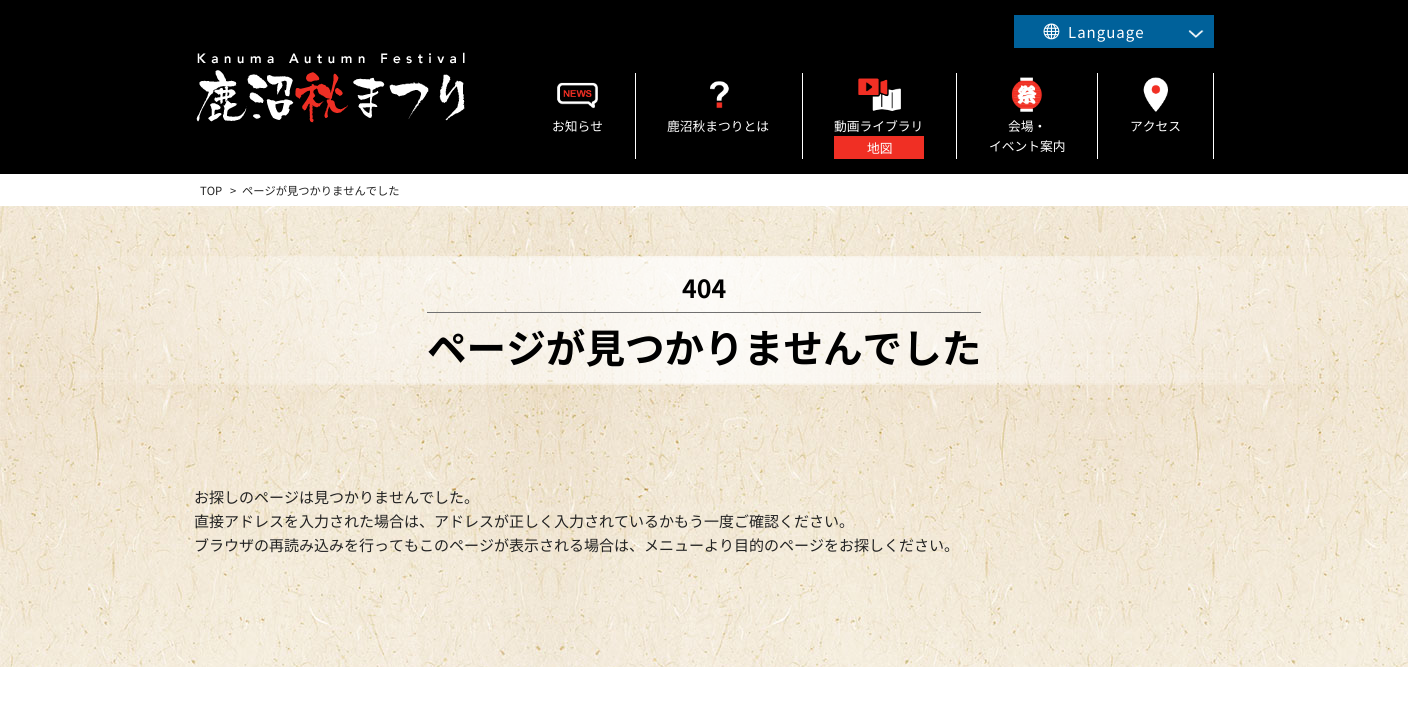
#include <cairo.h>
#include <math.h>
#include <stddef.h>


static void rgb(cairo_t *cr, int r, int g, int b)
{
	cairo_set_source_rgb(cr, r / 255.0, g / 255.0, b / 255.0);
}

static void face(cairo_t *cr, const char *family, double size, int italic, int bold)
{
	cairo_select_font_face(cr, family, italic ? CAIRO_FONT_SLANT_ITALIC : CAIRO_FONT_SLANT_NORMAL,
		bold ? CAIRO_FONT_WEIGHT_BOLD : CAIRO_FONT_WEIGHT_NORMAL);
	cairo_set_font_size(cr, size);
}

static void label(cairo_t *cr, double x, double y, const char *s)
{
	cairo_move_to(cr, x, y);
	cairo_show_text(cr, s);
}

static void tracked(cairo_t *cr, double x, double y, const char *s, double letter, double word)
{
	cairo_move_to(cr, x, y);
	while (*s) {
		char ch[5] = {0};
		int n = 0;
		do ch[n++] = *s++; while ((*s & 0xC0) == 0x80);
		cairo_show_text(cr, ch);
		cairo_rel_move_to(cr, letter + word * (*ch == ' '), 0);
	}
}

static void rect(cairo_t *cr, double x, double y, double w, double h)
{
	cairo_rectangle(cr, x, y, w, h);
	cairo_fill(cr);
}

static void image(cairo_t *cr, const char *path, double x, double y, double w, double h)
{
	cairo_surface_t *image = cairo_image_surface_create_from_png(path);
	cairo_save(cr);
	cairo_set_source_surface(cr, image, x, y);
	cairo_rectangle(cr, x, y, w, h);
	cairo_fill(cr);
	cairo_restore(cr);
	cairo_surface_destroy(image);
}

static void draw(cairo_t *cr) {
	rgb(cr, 255, 255, 255);
	cairo_paint(cr);
	image(cr, "image0.png", 0, 206, 1408, 461);
	rgb(cr, 0, 0, 0);
	rect(cr, 0, 0, 1408, 174);
	image(cr, "image1.png", 196, 52, 269, 71);
	rgb(cr, 0, 97, 154);
	rect(cr, 1014, 15, 200, 33);
	image(cr, "image2.png", 1188, 30, 16, 8);
	image(cr, "image3.png", 1043, 23, 17, 17);
	face(cr, "Noto Sans JP", 15, 0, 0);
	rgb(cr, 255, 255, 255);
	tracked(cr, 1068, 38, "Language", 1, 0);
	rect(cr, 635, 73, 1, 86);
	image(cr, "image4.png", 557, 82, 41, 27);
	face(cr, "Noto Sans JP", 12.75, 0, 0);
	label(cr, 552, 131, "お知らせ");
	rect(cr, 802, 73, 1, 86);
	image(cr, "image5.png", 710, 81, 19, 28);
	label(cr, 667, 131, "鹿沼秋まつりとは");
	rect(cr, 956, 73, 1, 86);
	image(cr, "image6.png", 858, 78, 43, 33);
	label(cr, 834, 131, "動画ライブラリ");
	rgb(cr, 240, 47, 36);
	rect(cr, 834, 136, 90, 23);
	rgb(cr, 255, 255, 255);
	label(cr, 867, 153, "地図");
	rect(cr, 1097, 73, 1, 86);
	image(cr, "image7.png", 1011, 77, 32, 35);
	label(cr, 1008, 131, "会場・");
	label(cr, 989, 151, "イベント案内");
	rect(cr, 1213, 73, 1, 86);
	image(cr, "image8.png", 1143, 77, 25, 35);
	label(cr, 1130, 131, "アクセス");
	face(cr, "Noto Sans JP", 11.25, 0, 0);
	rgb(cr, 34, 34, 34);
	label(cr, 200, 195, "TOP");
	label(cr, 230, 195, ">");
	label(cr, 242, 195, "ページが見つかりませんでした");
	image(cr, "image9.png", 73, 256, 1295, 129);
	rgb(cr, 112, 112, 112);
	rect(cr, 427, 312, 554, 1);
	face(cr, "Noto Sans JP", 25, 0, 1);
	rgb(cr, 0, 0, 0);
	label(cr, 682, 298, "404");
	face(cr, "Noto Sans JP", 39.6, 0, 1);
	label(cr, 427, 363, "ページが見つかりませんでした");
	face(cr, "Noto Sans JP", 15, 0, 0);
	rgb(cr, 34, 34, 34);
	label(cr, 194, 503, "お探しのページは見つかりませんでした。");
	label(cr, 194, 527, "直接アドレスを入力された場合は、アドレスが正しく入力されているかもう一度ご確認ください。");
	label(cr, 194, 551, "ブラウザの再読み込みを行ってもこのページが表示される場合は、メニューより目的のページをお探しください。");
}

int main(void) {
	cairo_surface_t *surface = cairo_image_surface_create(CAIRO_FORMAT_RGB24, 1408, 725);
	cairo_t *cr = cairo_create(surface);
	cairo_font_options_t *options = cairo_font_options_create();
	cairo_font_options_set_hint_metrics(options, CAIRO_HINT_METRICS_OFF);
	cairo_font_options_set_hint_style(options, CAIRO_HINT_STYLE_NONE);
	cairo_set_font_options(cr, options);
	cairo_set_miter_limit(cr, 4);
	draw(cr);
	cairo_surface_write_to_png(surface, "render.png");
	cairo_font_options_destroy(options);
	cairo_destroy(cr);
	cairo_surface_destroy(surface);
	return 0;
}
